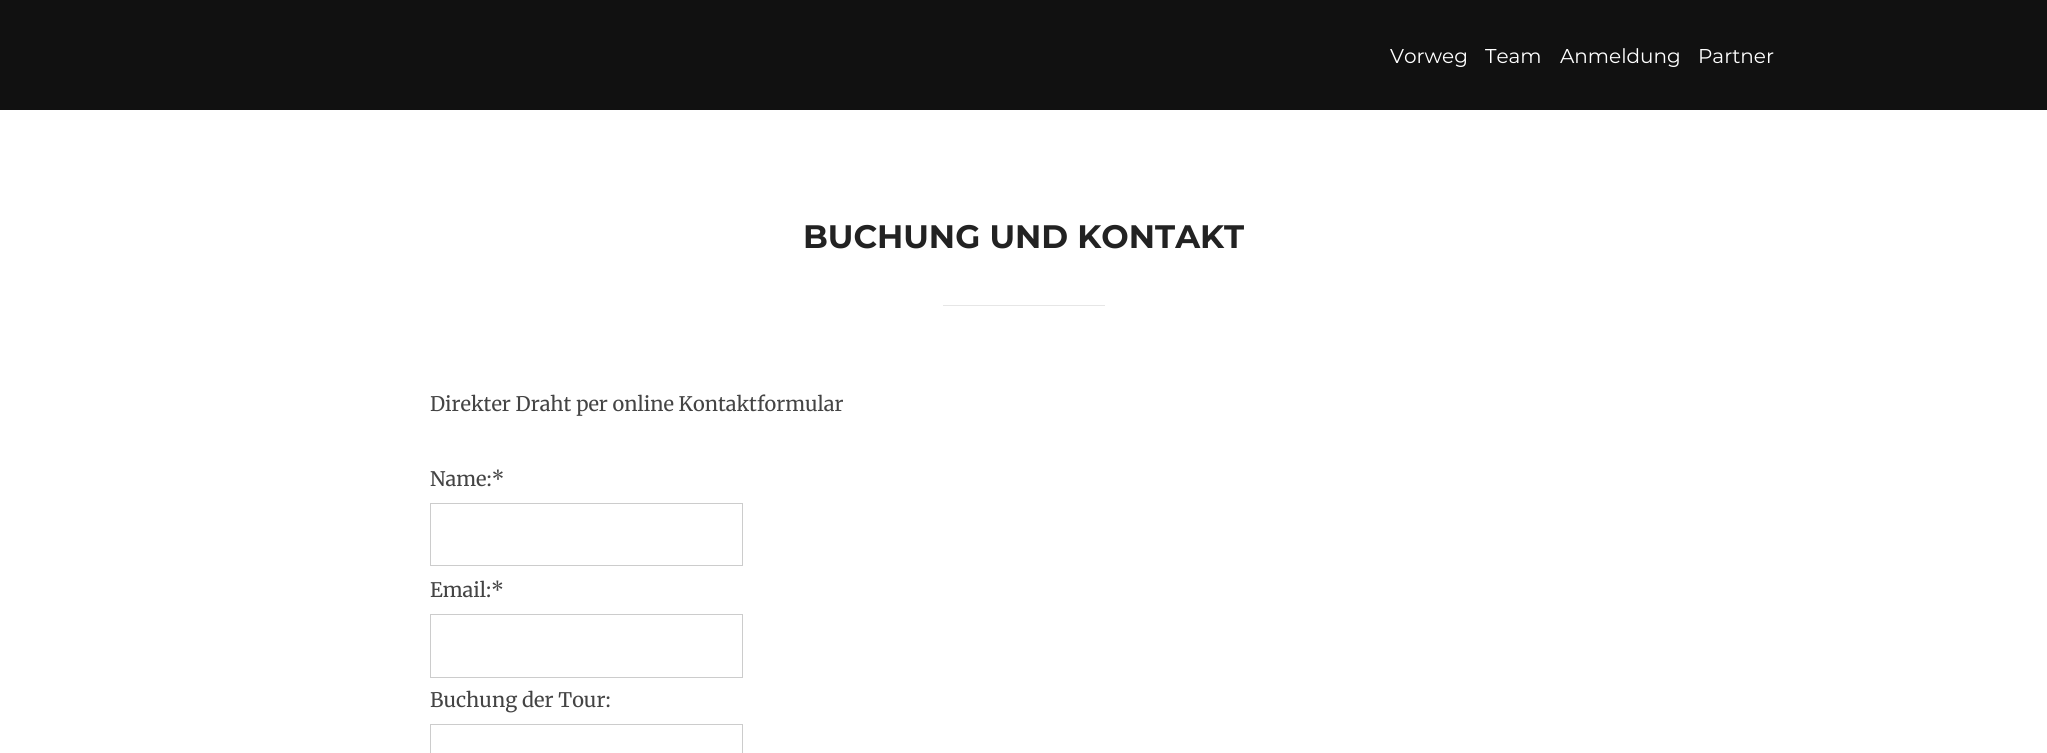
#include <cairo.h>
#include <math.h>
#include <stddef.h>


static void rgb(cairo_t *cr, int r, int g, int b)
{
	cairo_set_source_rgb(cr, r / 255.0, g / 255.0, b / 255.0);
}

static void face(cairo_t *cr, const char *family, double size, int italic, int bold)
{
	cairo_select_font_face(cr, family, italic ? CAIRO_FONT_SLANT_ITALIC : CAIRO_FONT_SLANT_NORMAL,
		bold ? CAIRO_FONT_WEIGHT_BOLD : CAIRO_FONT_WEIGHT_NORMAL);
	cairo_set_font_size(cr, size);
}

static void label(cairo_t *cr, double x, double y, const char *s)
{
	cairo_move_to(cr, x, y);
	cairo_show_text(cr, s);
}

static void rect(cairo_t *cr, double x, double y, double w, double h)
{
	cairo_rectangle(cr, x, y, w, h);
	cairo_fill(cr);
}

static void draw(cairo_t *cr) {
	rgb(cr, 255, 255, 255);
	cairo_paint(cr);
	rgb(cr, 17, 17, 17);
	rect(cr, 0, 0, 2047, 110);
	face(cr, "Montserrat", 20, 0, 0);
	rgb(cr, 255, 255, 255);
	label(cr, 1390, 63, "Vorweg");
	label(cr, 1485, 63, "Team");
	label(cr, 1560, 63, "Anmeldung");
	label(cr, 1698, 63, "Partner");
	face(cr, "Montserrat", 32.5, 0, 1);
	rgb(cr, 34, 34, 34);
	label(cr, 803, 248, "BUCHUNG UND KONTAKT");
	rgb(cr, 230, 230, 230);
	rect(cr, 943, 305, 162, 1);
	face(cr, "Merriweather", 20, 0, 0);
	rgb(cr, 68, 68, 68);
	label(cr, 430, 411, "Direkter Draht per online Kontaktformular");
	label(cr, 430, 486, "Name:*");
	cairo_rectangle(cr, 430.5, 503.5, 312, 62);
	rgb(cr, 204, 204, 204);
	cairo_set_line_width(cr, 1);
	cairo_stroke(cr);
	rgb(cr, 68, 68, 68);
	label(cr, 430, 597, "Email:*");
	cairo_rectangle(cr, 430.5, 614.5, 312, 63);
	rgb(cr, 204, 204, 204);
	cairo_stroke(cr);
	rgb(cr, 68, 68, 68);
	label(cr, 430, 707, "Buchung der Tour:");
	cairo_rectangle(cr, 430.5, 724.5, 312, 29);
	rgb(cr, 204, 204, 204);
	cairo_stroke(cr);
}

int main(void) {
	cairo_surface_t *surface = cairo_image_surface_create(CAIRO_FORMAT_RGB24, 2047, 753);
	cairo_t *cr = cairo_create(surface);
	cairo_font_options_t *options = cairo_font_options_create();
	cairo_font_options_set_hint_metrics(options, CAIRO_HINT_METRICS_OFF);
	cairo_font_options_set_hint_style(options, CAIRO_HINT_STYLE_NONE);
	cairo_set_font_options(cr, options);
	cairo_set_miter_limit(cr, 4);
	draw(cr);
	cairo_surface_write_to_png(surface, "render.png");
	cairo_font_options_destroy(options);
	cairo_destroy(cr);
	cairo_surface_destroy(surface);
	return 0;
}
